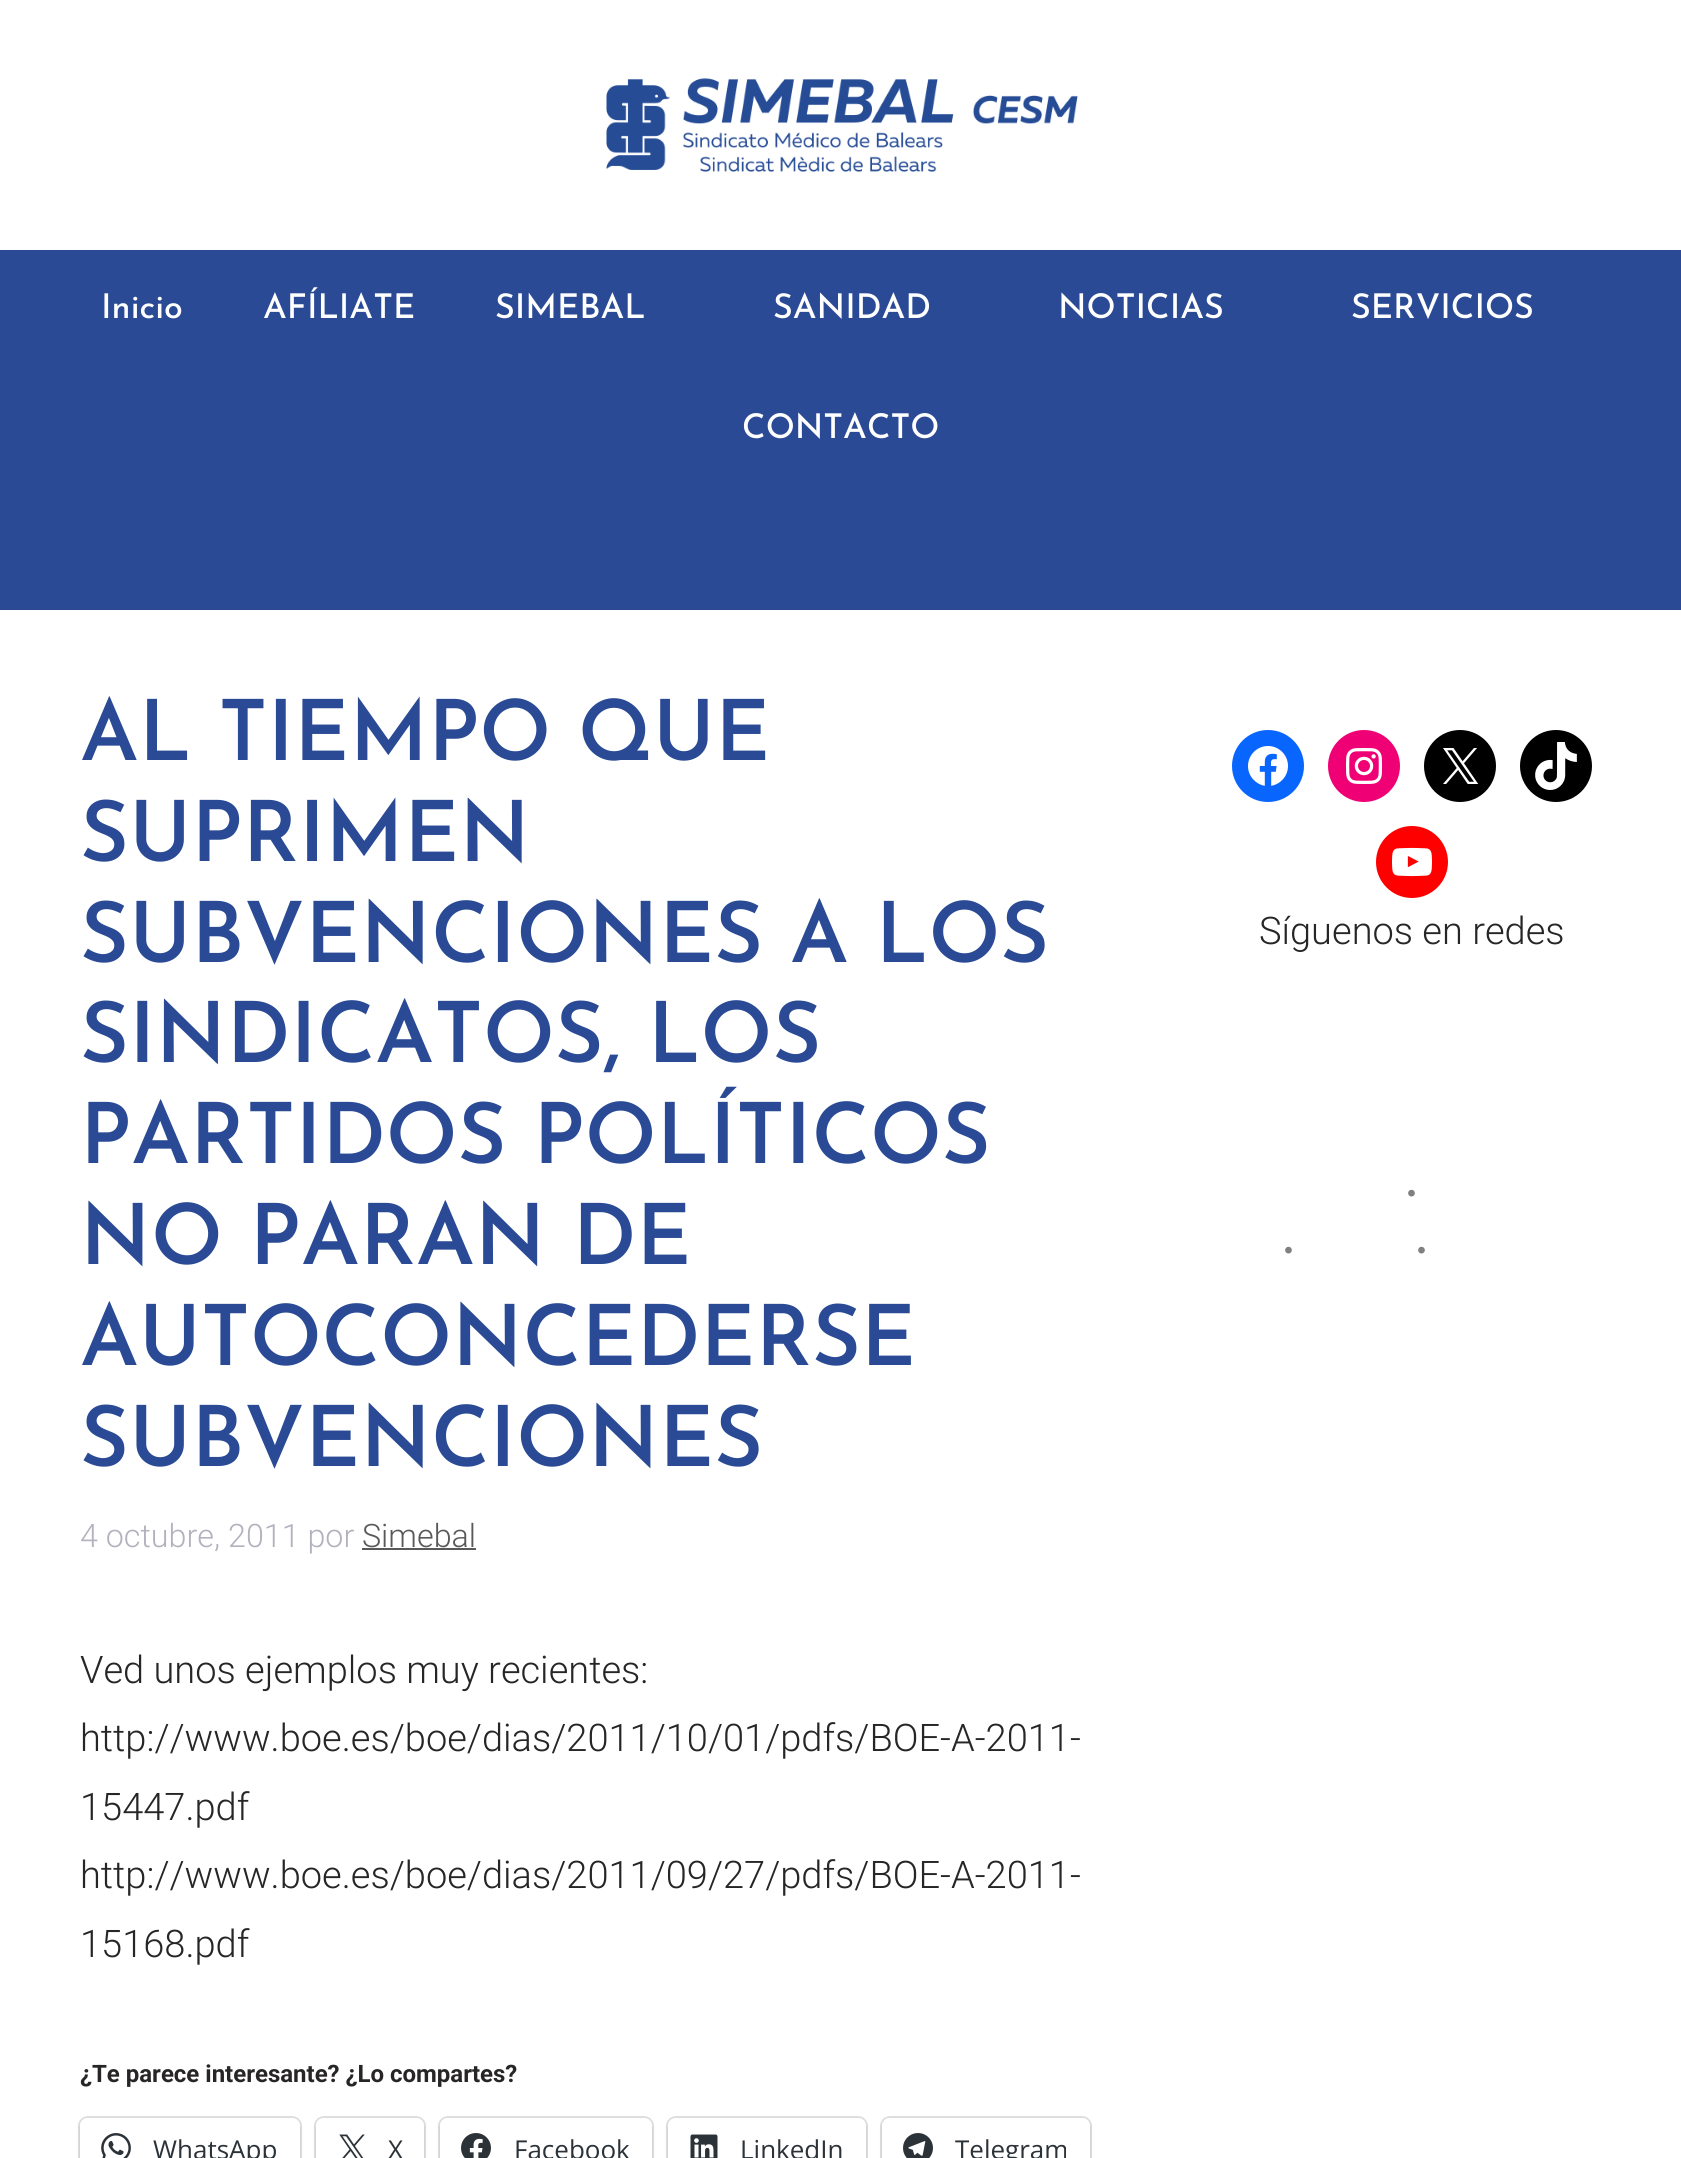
#include <cairo.h>
#include <math.h>
#include <stddef.h>


static void rgb(cairo_t *cr, int r, int g, int b)
{
	cairo_set_source_rgb(cr, r / 255.0, g / 255.0, b / 255.0);
}

static void face(cairo_t *cr, const char *family, double size, int italic, int bold)
{
	cairo_select_font_face(cr, family, italic ? CAIRO_FONT_SLANT_ITALIC : CAIRO_FONT_SLANT_NORMAL,
		bold ? CAIRO_FONT_WEIGHT_BOLD : CAIRO_FONT_WEIGHT_NORMAL);
	cairo_set_font_size(cr, size);
}

static void label(cairo_t *cr, double x, double y, const char *s)
{
	cairo_move_to(cr, x, y);
	cairo_show_text(cr, s);
}

static void tracked(cairo_t *cr, double x, double y, const char *s, double letter, double word)
{
	cairo_move_to(cr, x, y);
	while (*s) {
		char ch[5] = {0};
		int n = 0;
		do ch[n++] = *s++; while ((*s & 0xC0) == 0x80);
		cairo_show_text(cr, ch);
		cairo_rel_move_to(cr, letter + word * (*ch == ' '), 0);
	}
}

static void rect(cairo_t *cr, double x, double y, double w, double h)
{
	cairo_rectangle(cr, x, y, w, h);
	cairo_fill(cr);
}

static void rrect(cairo_t *cr, double x, double y, double w, double h, double r)
{
	cairo_new_sub_path(cr);
	cairo_arc(cr, x + w - r, y + h - r, r, 0, M_PI / 2);
	cairo_arc(cr, x + r, y + h - r, r, M_PI / 2, M_PI);
	cairo_arc(cr, x + r, y + r, r, M_PI, 1.5 * M_PI);
	cairo_arc(cr, x + w - r, y + r, r, 1.5 * M_PI, 2 * M_PI);
	cairo_close_path(cr);
}

static void soft_shadow(cairo_t *cr, double x, double y, double w, double h, double r, double blur, double alpha)
{
	cairo_push_group_with_content(cr, CAIRO_CONTENT_ALPHA);
	cairo_set_operator(cr, CAIRO_OPERATOR_SOURCE);
	for (int i = 15; i >= -15 && fmin(w, h) + blur * i / 3 > 0; i -= 2) {
		double e = blur * i / 6;
		cairo_set_source_rgba(cr, 0, 0, 0, alpha * erfc((i - 1) / 8.5) / 2);
		rrect(cr, x - e, y - e, w + 2 * e, h + 2 * e, fmax(0, fmin(r + e + blur * .6, fmin(w, h) / 2 + e)));
		cairo_fill(cr);
	}
	cairo_pattern_t *soft = cairo_pop_group(cr);
	cairo_mask(cr, soft);
	cairo_pattern_destroy(soft);
}

static void image(cairo_t *cr, const char *path, double x, double y, double w, double h)
{
	cairo_surface_t *image = cairo_image_surface_create_from_png(path);
	cairo_save(cr);
	cairo_set_source_surface(cr, image, x, y);
	cairo_rectangle(cr, x, y, w, h);
	cairo_fill(cr);
	cairo_restore(cr);
	cairo_surface_destroy(image);
}

static void draw(cairo_t *cr) {
	rgb(cr, 255, 255, 255);
	cairo_paint(cr);
	image(cr, "image0.png", 606, 78, 472, 94);
	rgb(cr, 42, 74, 149);
	rect(cr, 0, 250, 1681, 360);
	face(cr, "Josefin Sans Medium", 34, 0, 0);
	rgb(cr, 255, 255, 255);
	label(cr, 101, 318, "Inicio");
	label(cr, 263, 318, "AFÍLIATE");
	label(cr, 495, 318, "SIMEBAL");
	label(cr, 773, 318, "SANIDAD");
	label(cr, 1058, 318, "NOTICIAS");
	label(cr, 1351, 318, "SERVICIOS");
	label(cr, 742, 438, "CONTACTO");
	face(cr, "Josefin Sans SemiBold", 84, 0, 0);
	rgb(cr, 42, 74, 149);
	label(cr, 80, 760, "AL TIEMPO QUE");
	label(cr, 80, 861, "SUPRIMEN");
	label(cr, 80, 962, "SUBVENCIONES A LOS");
	label(cr, 80, 1062, "SINDICATOS, LOS");
	label(cr, 80, 1163, "PARTIDOS POLÍTICOS");
	label(cr, 80, 1264, "NO PARAN DE");
	label(cr, 80, 1365, "AUTOCONCEDERSE");
	label(cr, 80, 1466, "SUBVENCIONES");
	face(cr, "Roboto Light", 32.25, 0, 0);
	rgb(cr, 178, 178, 190);
	label(cr, 80, 1547, "4 octubre, 2011 por");
	rgb(cr, 89, 89, 89);
	label(cr, 362, 1547, "Simebal");
	rect(cr, 362, 1548, 114, 2);
	face(cr, "Roboto Light", 38, 0, 0);
	rgb(cr, 39, 37, 37);
	label(cr, 80, 1683, "Ved unos ejemplos muy recientes:");
	label(cr, 80, 1751, "http://www.boe.es/boe/dias/2011/10/01/pdfs/BOE-A-2011-");
	label(cr, 80, 1820, "15447.pdf");
	label(cr, 80, 1888, "http://www.boe.es/boe/dias/2011/09/27/pdfs/BOE-A-2011-");
	label(cr, 80, 1957, "15168.pdf");
	face(cr, "Roboto", 24, 0, 1);
	label(cr, 80, 2082, "¿Te parece interesante? ¿Lo compartes?");
	rrect(cr, 79, 2117, 222, 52, 9);
	rgb(cr, 224, 224, 224);
	cairo_stroke(cr);
	rgb(cr, 0, 0, 0);
	soft_shadow(cr, 80, 2120, 220, 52, 8, 2, 0.12);
	rgb(cr, 255, 255, 255);
	rrect(cr, 80, 2118, 220, 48, 8);
	cairo_fill(cr);
	image(cr, "image1.png", 101, 2133, 30, 25);
	face(cr, "Open Sans", 26, 0, 0);
	rgb(cr, 44, 51, 56);
	label(cr, 153, 2159, "WhatsApp");
	rrect(cr, 315, 2117, 110, 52, 9);
	rgb(cr, 224, 224, 224);
	cairo_stroke(cr);
	rgb(cr, 0, 0, 0);
	soft_shadow(cr, 316, 2120, 108, 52, 8, 2, 0.12);
	rgb(cr, 255, 255, 255);
	rrect(cr, 316, 2118, 108, 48, 8);
	cairo_fill(cr);
	image(cr, "image2.png", 339, 2134, 26, 24);
	rgb(cr, 44, 51, 56);
	label(cr, 388, 2159, "X");
	rrect(cr, 439, 2117, 214, 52, 9);
	rgb(cr, 224, 224, 224);
	cairo_stroke(cr);
	rgb(cr, 0, 0, 0);
	soft_shadow(cr, 440, 2120, 212, 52, 8, 2, 0.12);
	rgb(cr, 255, 255, 255);
	rrect(cr, 440, 2118, 212, 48, 8);
	cairo_fill(cr);
	image(cr, "image3.png", 461, 2133, 30, 25);
	rgb(cr, 44, 51, 56);
	label(cr, 514, 2159, "Facebook");
	rrect(cr, 667, 2117, 200, 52, 9);
	rgb(cr, 224, 224, 224);
	cairo_stroke(cr);
	rgb(cr, 0, 0, 0);
	soft_shadow(cr, 668, 2120, 198, 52, 8, 2, 0.12);
	rgb(cr, 255, 255, 255);
	rrect(cr, 668, 2118, 198, 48, 8);
	cairo_fill(cr);
	image(cr, "image4.png", 690, 2134, 28, 24);
	rgb(cr, 44, 51, 56);
	label(cr, 740, 2159, "LinkedIn");
	rrect(cr, 881, 2117, 210, 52, 9);
	rgb(cr, 224, 224, 224);
	cairo_stroke(cr);
	rgb(cr, 0, 0, 0);
	soft_shadow(cr, 882, 2120, 208, 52, 8, 2, 0.12);
	rgb(cr, 255, 255, 255);
	rrect(cr, 882, 2118, 208, 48, 8);
	cairo_fill(cr);
	image(cr, "image5.png", 903, 2133, 30, 25);
	rgb(cr, 44, 51, 56);
	label(cr, 955, 2159, "Telegram");
	rgb(cr, 8, 102, 255);
	cairo_new_path(cr);
	cairo_arc(cr, 1268, 766, 36, 0, 2 * M_PI);
	cairo_fill(cr);
	image(cr, "image6.png", 1248, 746, 40, 40);
	rgb(cr, 240, 0, 117);
	cairo_arc(cr, 1364, 766, 36, 0, 2 * M_PI);
	cairo_fill(cr);
	image(cr, "image7.png", 1346, 748, 36, 36);
	rgb(cr, 0, 0, 0);
	cairo_arc(cr, 1460, 766, 36, 0, 2 * M_PI);
	cairo_fill(cr);
	image(cr, "image8.png", 1443, 748, 36, 36);
	cairo_arc(cr, 1556, 766, 36, 0, 2 * M_PI);
	cairo_fill(cr);
	image(cr, "image9.png", 1535, 742, 42, 48);
	rgb(cr, 255, 0, 0);
	cairo_arc(cr, 1412, 862, 36, 0, 2 * M_PI);
	cairo_fill(cr);
	image(cr, "image10.png", 1392, 847, 40, 30);
	face(cr, "Roboto Light", 38, 0, 0);
	rgb(cr, 39, 37, 37);
	label(cr, 1259, 944, "Síguenos en redes");
	face(cr, "Liberation Serif", 57, 0, 0);
	rgb(cr, 128, 128, 128);
	tracked(cr, 1402, 1212, "·", 114, 0);
	tracked(cr, 1279, 1269, "··", 114, 0);
}

int main(void) {
	cairo_surface_t *surface = cairo_image_surface_create(CAIRO_FORMAT_RGB24, 1681, 2158);
	cairo_t *cr = cairo_create(surface);
	cairo_font_options_t *options = cairo_font_options_create();
	cairo_font_options_set_hint_metrics(options, CAIRO_HINT_METRICS_OFF);
	cairo_font_options_set_hint_style(options, CAIRO_HINT_STYLE_NONE);
	cairo_set_font_options(cr, options);
	cairo_set_miter_limit(cr, 4);
	draw(cr);
	cairo_surface_write_to_png(surface, "render.png");
	cairo_font_options_destroy(options);
	cairo_destroy(cr);
	cairo_surface_destroy(surface);
	return 0;
}
